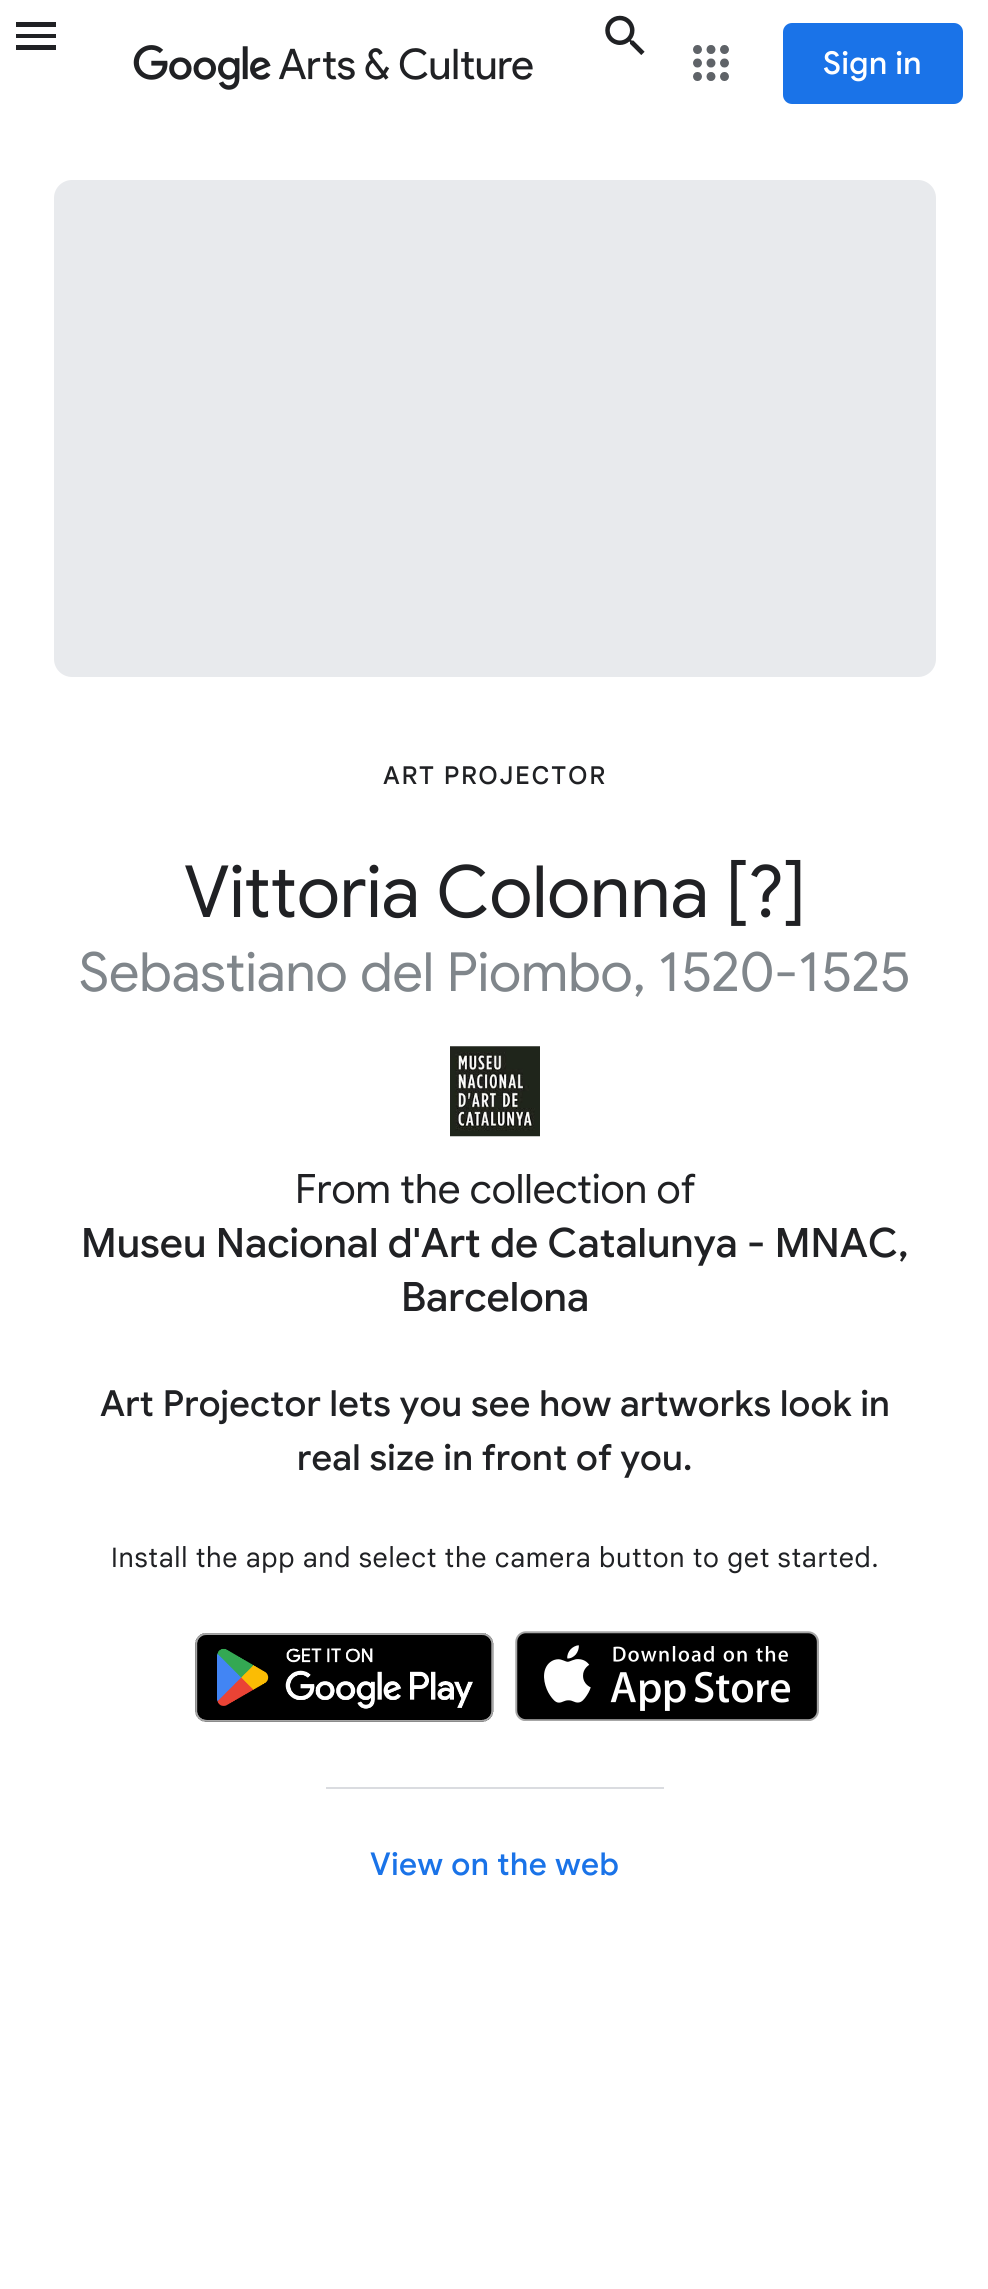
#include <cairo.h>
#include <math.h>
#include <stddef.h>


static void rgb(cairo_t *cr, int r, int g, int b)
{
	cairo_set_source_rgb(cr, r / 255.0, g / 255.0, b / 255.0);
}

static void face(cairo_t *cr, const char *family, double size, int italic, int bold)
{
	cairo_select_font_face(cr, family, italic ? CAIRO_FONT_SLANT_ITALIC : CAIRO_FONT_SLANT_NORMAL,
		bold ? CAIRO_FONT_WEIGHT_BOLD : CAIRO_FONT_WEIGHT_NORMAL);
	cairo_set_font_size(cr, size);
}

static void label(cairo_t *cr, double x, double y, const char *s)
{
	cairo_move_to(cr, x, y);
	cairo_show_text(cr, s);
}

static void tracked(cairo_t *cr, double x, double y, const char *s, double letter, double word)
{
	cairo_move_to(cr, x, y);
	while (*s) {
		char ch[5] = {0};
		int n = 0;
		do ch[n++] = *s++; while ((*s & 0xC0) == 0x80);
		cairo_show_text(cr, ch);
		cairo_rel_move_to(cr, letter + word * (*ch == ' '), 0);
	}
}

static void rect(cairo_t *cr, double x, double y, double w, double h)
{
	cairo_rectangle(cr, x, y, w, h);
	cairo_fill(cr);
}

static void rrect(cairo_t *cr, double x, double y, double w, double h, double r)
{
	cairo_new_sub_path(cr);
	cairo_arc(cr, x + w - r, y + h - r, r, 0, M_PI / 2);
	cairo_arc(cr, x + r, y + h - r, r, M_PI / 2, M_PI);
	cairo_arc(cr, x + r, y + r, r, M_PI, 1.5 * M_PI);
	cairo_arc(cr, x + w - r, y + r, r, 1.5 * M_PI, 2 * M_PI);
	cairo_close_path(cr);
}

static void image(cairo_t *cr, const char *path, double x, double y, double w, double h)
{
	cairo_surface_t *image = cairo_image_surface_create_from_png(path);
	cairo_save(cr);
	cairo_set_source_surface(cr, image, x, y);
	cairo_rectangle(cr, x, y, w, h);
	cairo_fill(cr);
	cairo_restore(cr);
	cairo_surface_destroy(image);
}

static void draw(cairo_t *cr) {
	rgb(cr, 255, 255, 255);
	cairo_paint(cr);
	rgb(cr, 32, 33, 36);
	cairo_new_path(cr);
	cairo_move_to(cr, 16, 50);
	cairo_line_to(cr, 56, 50);
	cairo_line_to(cr, 56, 45);
	cairo_line_to(cr, 16, 45);
	cairo_close_path(cr);
	cairo_move_to(cr, 16, 38);
	cairo_line_to(cr, 56, 38);
	cairo_line_to(cr, 56, 34);
	cairo_line_to(cr, 16, 34);
	cairo_close_path(cr);
	cairo_move_to(cr, 16, 22);
	cairo_line_to(cr, 16, 27);
	cairo_line_to(cr, 56, 27);
	cairo_line_to(cr, 56, 22);
	cairo_close_path(cr);
	cairo_fill(cr);
	image(cr, "image0.png", 133, 45, 400, 45);
	image(cr, "image1.png", 605, 15, 40, 40);
	image(cr, "image2.png", 693, 45, 36, 36);
	rgb(cr, 26, 115, 232);
	rrect(cr, 783, 23, 180, 81, 9);
	cairo_fill(cr);
	face(cr, "Google Sans Medium", 31.5, 0, 0);
	rgb(cr, 255, 255, 255);
	tracked(cr, 823, 74, "Sign in", 0.5, 0);
	rgb(cr, 232, 234, 237);
	rrect(cr, 54, 180, 882, 497, 18);
	cairo_fill(cr);
	face(cr, "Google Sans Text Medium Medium", 24.75, 0, 0);
	rgb(cr, 32, 33, 36);
	tracked(cr, 383, 784, "ART PROJECTOR", 1.75, 0);
	face(cr, "Google Sans", 72, 0, 0);
	label(cr, 184, 917, "Vittoria Colonna [?]");
	face(cr, "Google Sans", 54, 0, 0);
	rgb(cr, 128, 134, 139);
	label(cr, 79, 991, "Sebastiano del Piombo, 1520-1525");
	image(cr, "image3.png", 450, 1046, 90, 91);
	face(cr, "Google Sans", 40.5, 0, 0);
	rgb(cr, 32, 33, 36);
	label(cr, 295, 1203, "From the collection of");
	face(cr, "Google Sans Medium", 40.5, 0, 0);
	label(cr, 81, 1257, "Museu Nacional d'Art de Catalunya - MNAC,");
	label(cr, 401, 1311, "Barcelona");
	face(cr, "Google Sans Medium", 36, 0, 0);
	tracked(cr, 100, 1416, "Art Projector lets you see how artworks look in", 0.25, 0);
	tracked(cr, 297, 1470, "real size in front of you.", 0.25, 0);
	face(cr, "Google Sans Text", 27, 0, 0);
	tracked(cr, 111, 1567, "Install the app and select the camera button to get started.", 0.67, 0);
	image(cr, "image4.png", 195, 1633, 299, 89);
	image(cr, "image5.png", 515, 1631, 304, 90);
	rgb(cr, 218, 220, 224);
	rect(cr, 326, 1787, 338, 2);
	face(cr, "Google Sans Medium", 31.5, 0, 0);
	rgb(cr, 26, 115, 232);
	tracked(cr, 370, 1875, "View on the web", 0.5, 0);
}

int main(void) {
	cairo_surface_t *surface = cairo_image_surface_create(CAIRO_FORMAT_RGB24, 988, 2289);
	cairo_t *cr = cairo_create(surface);
	cairo_font_options_t *options = cairo_font_options_create();
	cairo_font_options_set_hint_metrics(options, CAIRO_HINT_METRICS_OFF);
	cairo_font_options_set_hint_style(options, CAIRO_HINT_STYLE_NONE);
	cairo_set_font_options(cr, options);
	cairo_set_miter_limit(cr, 4);
	draw(cr);
	cairo_surface_write_to_png(surface, "render.png");
	cairo_font_options_destroy(options);
	cairo_destroy(cr);
	cairo_surface_destroy(surface);
	return 0;
}
